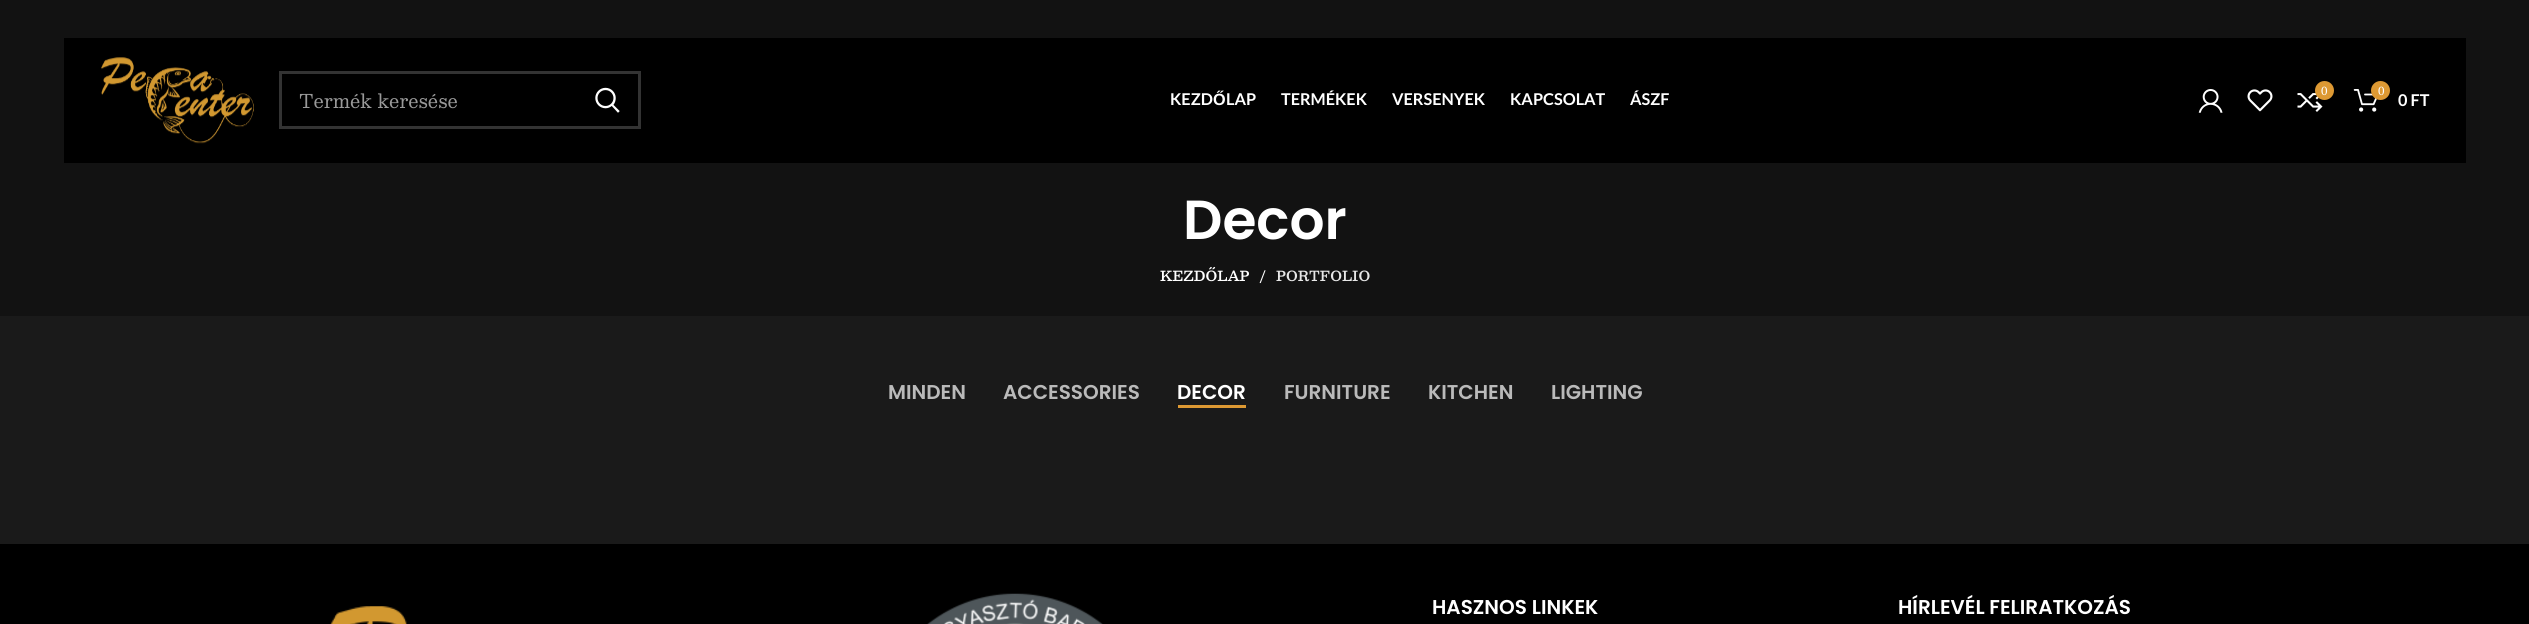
#include <cairo.h>
#include <math.h>
#include <stddef.h>


static void rgb(cairo_t *cr, int r, int g, int b)
{
	cairo_set_source_rgb(cr, r / 255.0, g / 255.0, b / 255.0);
}

static void face(cairo_t *cr, const char *family, double size, int italic, int bold)
{
	cairo_select_font_face(cr, family, italic ? CAIRO_FONT_SLANT_ITALIC : CAIRO_FONT_SLANT_NORMAL,
		bold ? CAIRO_FONT_WEIGHT_BOLD : CAIRO_FONT_WEIGHT_NORMAL);
	cairo_set_font_size(cr, size);
}

static void label(cairo_t *cr, double x, double y, const char *s)
{
	cairo_move_to(cr, x, y);
	cairo_show_text(cr, s);
}

static void rect(cairo_t *cr, double x, double y, double w, double h)
{
	cairo_rectangle(cr, x, y, w, h);
	cairo_fill(cr);
}

static void image(cairo_t *cr, const char *path, double x, double y, double w, double h)
{
	cairo_surface_t *image = cairo_image_surface_create_from_png(path);
	cairo_save(cr);
	cairo_set_source_surface(cr, image, x, y);
	cairo_rectangle(cr, x, y, w, h);
	cairo_fill(cr);
	cairo_restore(cr);
	cairo_surface_destroy(image);
}

static void draw(cairo_t *cr) {
	rgb(cr, 26, 26, 26);
	cairo_paint(cr);
	rgb(cr, 18, 18, 18);
	rect(cr, 0, 0, 2529, 316);
	rgb(cr, 0, 0, 0);
	rect(cr, 64, 38, 2402, 125);
	image(cr, "image0.png", 101, 57, 153, 87);
	cairo_rectangle(cr, 280.5, 72.5, 359, 55);
	rgb(cr, 51, 51, 51);
	cairo_set_line_width(cr, 3);
	cairo_stroke(cr);
	face(cr, "Besley", 18.75, 0, 0);
	rgb(cr, 153, 153, 153);
	label(cr, 299, 108, "Termék keresése");
	image(cr, "image1.png", 595, 87, 25, 26);
	face(cr, "Lato", 16.25, 0, 1);
	rgb(cr, 255, 255, 255);
	label(cr, 1170, 105, "KEZD");
	face(cr, "Liberation Sans", 16.25, 0, 1);
	label(cr, 1213, 105, "Ő");
	face(cr, "Lato", 16.25, 0, 1);
	label(cr, 1226, 105, "LAP");
	label(cr, 1281, 105, "TERMÉKEK");
	label(cr, 1392, 105, "VERSENYEK");
	label(cr, 1510, 105, "KAPCSOLAT");
	label(cr, 1630, 105, "ÁSZF");
	image(cr, "image2.png", 2198, 89, 25, 24);
	image(cr, "image3.png", 2247, 89, 26, 23);
	image(cr, "image4.png", 2297, 89, 26, 23);
	rgb(cr, 221, 153, 51);
	cairo_arc(cr, 2324.5, 90.5, 9.5, 0, 2 * M_PI);
	cairo_fill(cr);
	face(cr, "Besley", 11, 0, 0);
	rgb(cr, 255, 255, 255);
	label(cr, 2321, 95, "0");
	image(cr, "image5.png", 2353, 89, 24, 23);
	rgb(cr, 221, 153, 51);
	cairo_arc(cr, 2380.5, 90.5, 9.5, 0, 2 * M_PI);
	cairo_fill(cr);
	rgb(cr, 255, 255, 255);
	label(cr, 2378, 95, "0");
	face(cr, "Lato", 16.25, 0, 1);
	label(cr, 2398, 106, "0 FT");
	face(cr, "Poppins SemiBold", 55, 0, 0);
	label(cr, 1183, 239, "Decor");
	face(cr, "Besley SemiBold", 13.75, 0, 0);
	label(cr, 1160, 281, "KEZDŐLAP");
	label(cr, 1259, 281, "/");
	rgb(cr, 231, 231, 231);
	label(cr, 1276, 281, "PORTFOLIO");
	face(cr, "Poppins SemiBold", 20, 0, 0);
	rgb(cr, 186, 186, 186);
	label(cr, 888, 399, "MINDEN");
	label(cr, 1003, 399, "ACCESSORIES");
	rgb(cr, 255, 255, 255);
	label(cr, 1177, 399, "DECOR");
	rgb(cr, 221, 153, 51);
	rect(cr, 1178, 405, 68, 3);
	rgb(cr, 186, 186, 186);
	label(cr, 1284, 399, "FURNITURE");
	label(cr, 1428, 399, "KITCHEN");
	label(cr, 1551, 399, "LIGHTING");
	rgb(cr, 0, 0, 0);
	rect(cr, 0, 544, 2529, 80);
	image(cr, "image6.png", 330, 606, 77, 18);
	image(cr, "image7.png", 927, 593, 176, 31);
	rgb(cr, 255, 255, 255);
	label(cr, 1432, 614, "HASZNOS LINKEK");
	label(cr, 1898, 614, "HÍRLEVÉL FELIRATKOZÁS");
}

int main(void) {
	cairo_surface_t *surface = cairo_image_surface_create(CAIRO_FORMAT_RGB24, 2529, 624);
	cairo_t *cr = cairo_create(surface);
	cairo_font_options_t *options = cairo_font_options_create();
	cairo_font_options_set_hint_metrics(options, CAIRO_HINT_METRICS_OFF);
	cairo_font_options_set_hint_style(options, CAIRO_HINT_STYLE_NONE);
	cairo_set_font_options(cr, options);
	cairo_set_miter_limit(cr, 4);
	draw(cr);
	cairo_surface_write_to_png(surface, "render.png");
	cairo_font_options_destroy(options);
	cairo_destroy(cr);
	cairo_surface_destroy(surface);
	return 0;
}
